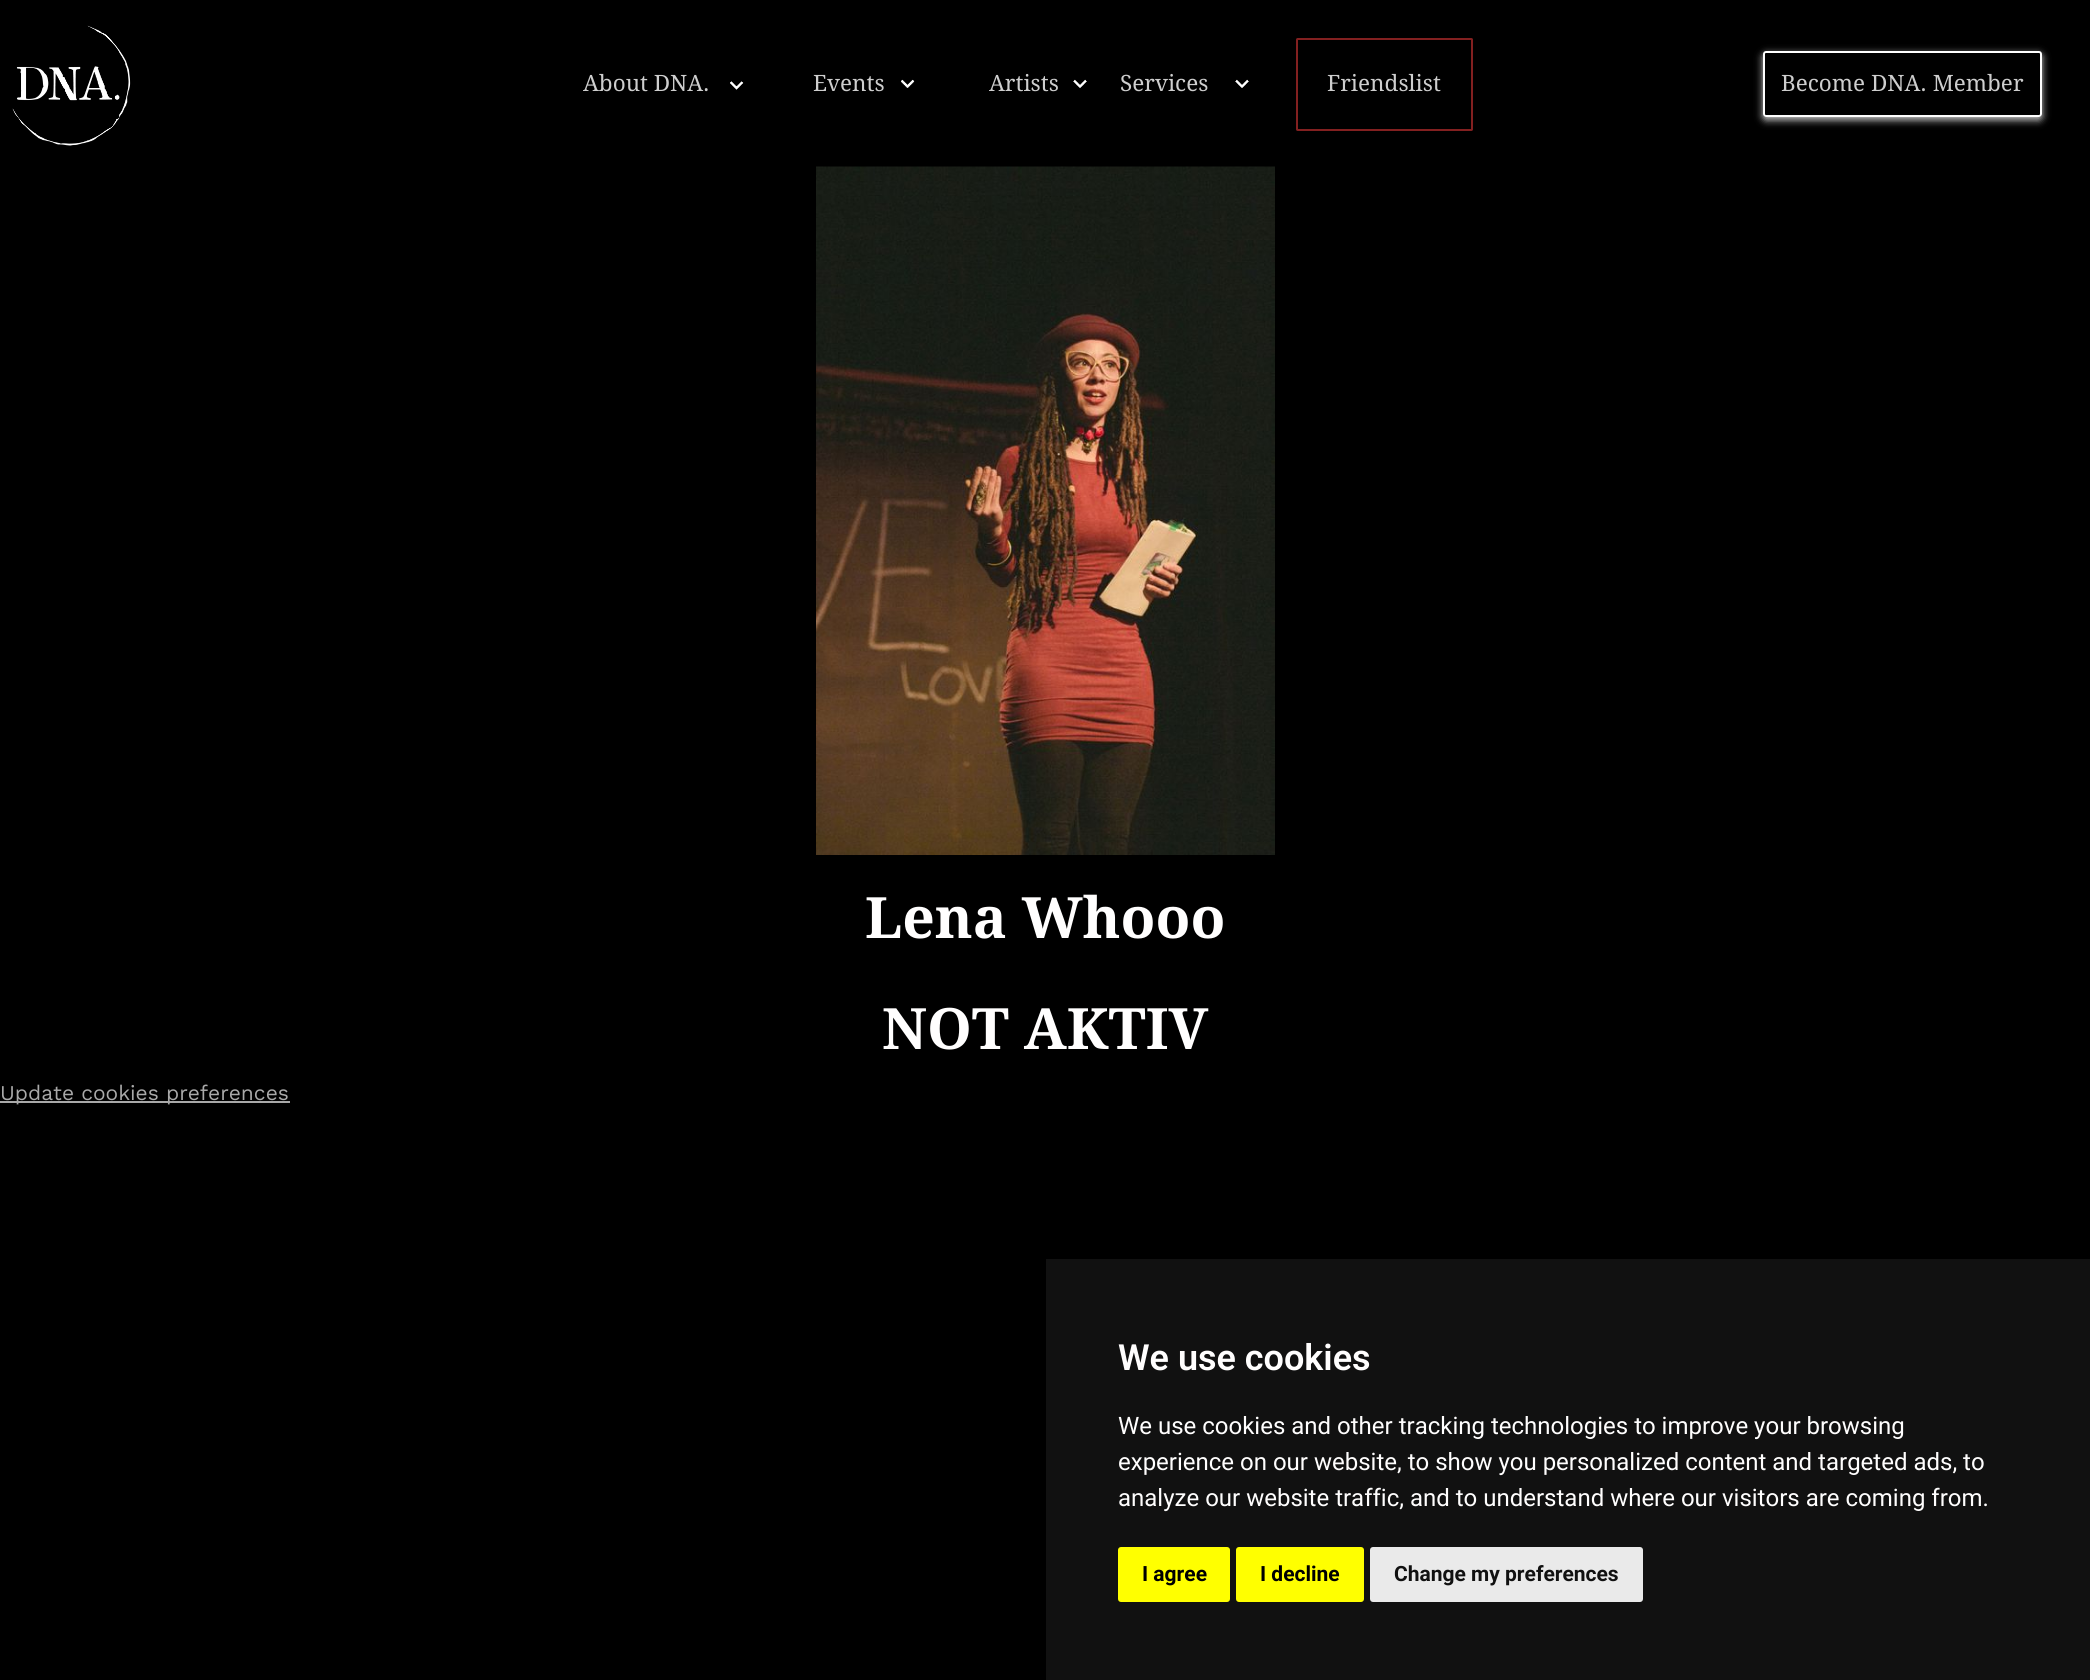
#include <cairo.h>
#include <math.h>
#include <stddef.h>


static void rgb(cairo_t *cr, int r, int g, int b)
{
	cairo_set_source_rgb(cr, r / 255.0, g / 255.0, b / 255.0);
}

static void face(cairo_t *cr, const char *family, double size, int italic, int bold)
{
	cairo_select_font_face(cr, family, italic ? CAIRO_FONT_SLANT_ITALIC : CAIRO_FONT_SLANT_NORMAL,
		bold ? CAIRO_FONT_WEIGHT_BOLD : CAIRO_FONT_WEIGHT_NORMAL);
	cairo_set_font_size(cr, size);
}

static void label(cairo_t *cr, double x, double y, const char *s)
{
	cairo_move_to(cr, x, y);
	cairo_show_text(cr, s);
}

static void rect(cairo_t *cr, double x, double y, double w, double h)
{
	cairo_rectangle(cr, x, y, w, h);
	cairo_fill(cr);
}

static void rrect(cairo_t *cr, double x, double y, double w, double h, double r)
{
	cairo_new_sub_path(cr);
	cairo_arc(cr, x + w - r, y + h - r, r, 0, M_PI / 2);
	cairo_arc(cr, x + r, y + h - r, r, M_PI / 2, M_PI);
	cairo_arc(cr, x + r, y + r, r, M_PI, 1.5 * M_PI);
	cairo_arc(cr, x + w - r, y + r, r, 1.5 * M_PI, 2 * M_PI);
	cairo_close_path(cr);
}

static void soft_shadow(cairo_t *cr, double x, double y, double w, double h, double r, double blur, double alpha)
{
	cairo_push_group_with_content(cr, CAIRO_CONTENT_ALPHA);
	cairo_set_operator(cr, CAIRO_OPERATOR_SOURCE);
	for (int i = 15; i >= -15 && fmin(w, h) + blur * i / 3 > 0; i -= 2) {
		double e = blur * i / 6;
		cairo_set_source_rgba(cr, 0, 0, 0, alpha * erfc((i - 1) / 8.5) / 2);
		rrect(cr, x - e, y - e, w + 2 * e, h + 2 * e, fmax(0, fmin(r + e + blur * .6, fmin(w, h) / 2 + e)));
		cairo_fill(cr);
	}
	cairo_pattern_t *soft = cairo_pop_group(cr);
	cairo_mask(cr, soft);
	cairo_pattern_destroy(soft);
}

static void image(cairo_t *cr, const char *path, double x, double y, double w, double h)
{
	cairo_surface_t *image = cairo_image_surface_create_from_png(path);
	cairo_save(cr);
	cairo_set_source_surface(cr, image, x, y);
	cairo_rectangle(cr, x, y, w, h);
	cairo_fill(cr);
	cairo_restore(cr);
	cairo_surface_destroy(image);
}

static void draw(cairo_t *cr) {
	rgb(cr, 0, 0, 0);
	cairo_paint(cr);
	image(cr, "image0.png", 12, 25, 119, 121);
	face(cr, "Droid Serif", 22.5, 0, 0);
	rgb(cr, 206, 206, 206);
	label(cr, 583, 91, "About DNA.");
	image(cr, "image1.png", 730, 81, 14, 9);
	label(cr, 813, 91, "Events");
	image(cr, "image2.png", 901, 79, 14, 9);
	label(cr, 989, 91, "Artists");
	image(cr, "image3.png", 1073, 79, 14, 9);
	label(cr, 1120, 91, "Services");
	image(cr, "image3.png", 1235, 79, 14, 9);
	rrect(cr, 1297, 39, 175, 91, 0.5);
	rgb(cr, 131, 32, 32);
	cairo_stroke(cr);
	rgb(cr, 206, 206, 206);
	label(cr, 1327, 91, "Friendslist");
	cairo_save(cr);
	cairo_set_fill_rule(cr, CAIRO_FILL_RULE_EVEN_ODD);
	cairo_new_path(cr);
	cairo_move_to(cr, 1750, 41);
	cairo_line_to(cr, 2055, 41);
	cairo_line_to(cr, 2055, 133);
	cairo_line_to(cr, 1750, 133);
	cairo_close_path(cr);
	cairo_move_to(cr, 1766, 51);
	cairo_line_to(cr, 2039, 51);
	cairo_curve_to(cr, 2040.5, 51, 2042, 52.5, 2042, 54);
	cairo_line_to(cr, 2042, 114);
	cairo_curve_to(cr, 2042, 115.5, 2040.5, 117, 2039, 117);
	cairo_line_to(cr, 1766, 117);
	cairo_curve_to(cr, 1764.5, 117, 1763, 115.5, 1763, 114);
	cairo_line_to(cr, 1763, 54);
	cairo_curve_to(cr, 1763, 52.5, 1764.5, 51, 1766, 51);
	cairo_close_path(cr);
	cairo_clip(cr);
	rgb(cr, 206, 206, 206);
	soft_shadow(cr, 1763, 54, 279, 66, 3, 4, 1);
	cairo_restore(cr);
	rrect(cr, 1764, 52, 277, 64, 2);
	rgb(cr, 255, 255, 255);
	cairo_stroke(cr);
	rgb(cr, 206, 206, 206);
	label(cr, 1781, 91, "Become DNA. Member");
	image(cr, "image4.png", 816, 166, 459, 689);
	face(cr, "Droid Serif", 57, 0, 1);
	rgb(cr, 255, 254, 254);
	label(cr, 865, 938, "Lena Whooo");
	label(cr, 882, 1049, "NOT AKTIV");
	rgb(cr, 169, 169, 169);
	rect(cr, 0, 1101, 290, 2);
	face(cr, "Work Sans", 21, 0, 0);
	label(cr, 0, 1100, "Update cookies preferences");
	rgb(cr, 17, 17, 17);
	rect(cr, 1046, 1259, 1044, 421);
	face(cr, "Roboto SemiBold", 36, 0, 0);
	rgb(cr, 255, 254, 254);
	label(cr, 1118, 1370, "We use cookies");
	face(cr, "Roboto", 24, 0, 0);
	label(cr, 1118, 1434, "We use cookies and other tracking technologies to improve your browsing");
	label(cr, 1118, 1470, "experience on our website, to show you personalized content and targeted ads, to");
	label(cr, 1118, 1506, "analyze our website traffic, and to understand where our visitors are coming from.");
	rgb(cr, 255, 255, 0);
	rrect(cr, 1118, 1547, 112, 55, 3);
	cairo_fill(cr);
	face(cr, "Roboto", 21, 0, 1);
	rgb(cr, 0, 0, 0);
	label(cr, 1142, 1581, "I agree");
	rgb(cr, 255, 255, 0);
	rrect(cr, 1236, 1547, 128, 55, 3);
	cairo_fill(cr);
	rgb(cr, 0, 0, 0);
	label(cr, 1260, 1581, "I decline");
	rgb(cr, 234, 234, 234);
	rrect(cr, 1370, 1547, 273, 55, 3);
	cairo_fill(cr);
	rgb(cr, 17, 17, 17);
	label(cr, 1394, 1581, "Change my preferences");
}

int main(void) {
	cairo_surface_t *surface = cairo_image_surface_create(CAIRO_FORMAT_RGB24, 2090, 1680);
	cairo_t *cr = cairo_create(surface);
	cairo_font_options_t *options = cairo_font_options_create();
	cairo_font_options_set_hint_metrics(options, CAIRO_HINT_METRICS_OFF);
	cairo_font_options_set_hint_style(options, CAIRO_HINT_STYLE_NONE);
	cairo_set_font_options(cr, options);
	cairo_set_miter_limit(cr, 4);
	draw(cr);
	cairo_surface_write_to_png(surface, "render.png");
	cairo_font_options_destroy(options);
	cairo_destroy(cr);
	cairo_surface_destroy(surface);
	return 0;
}
